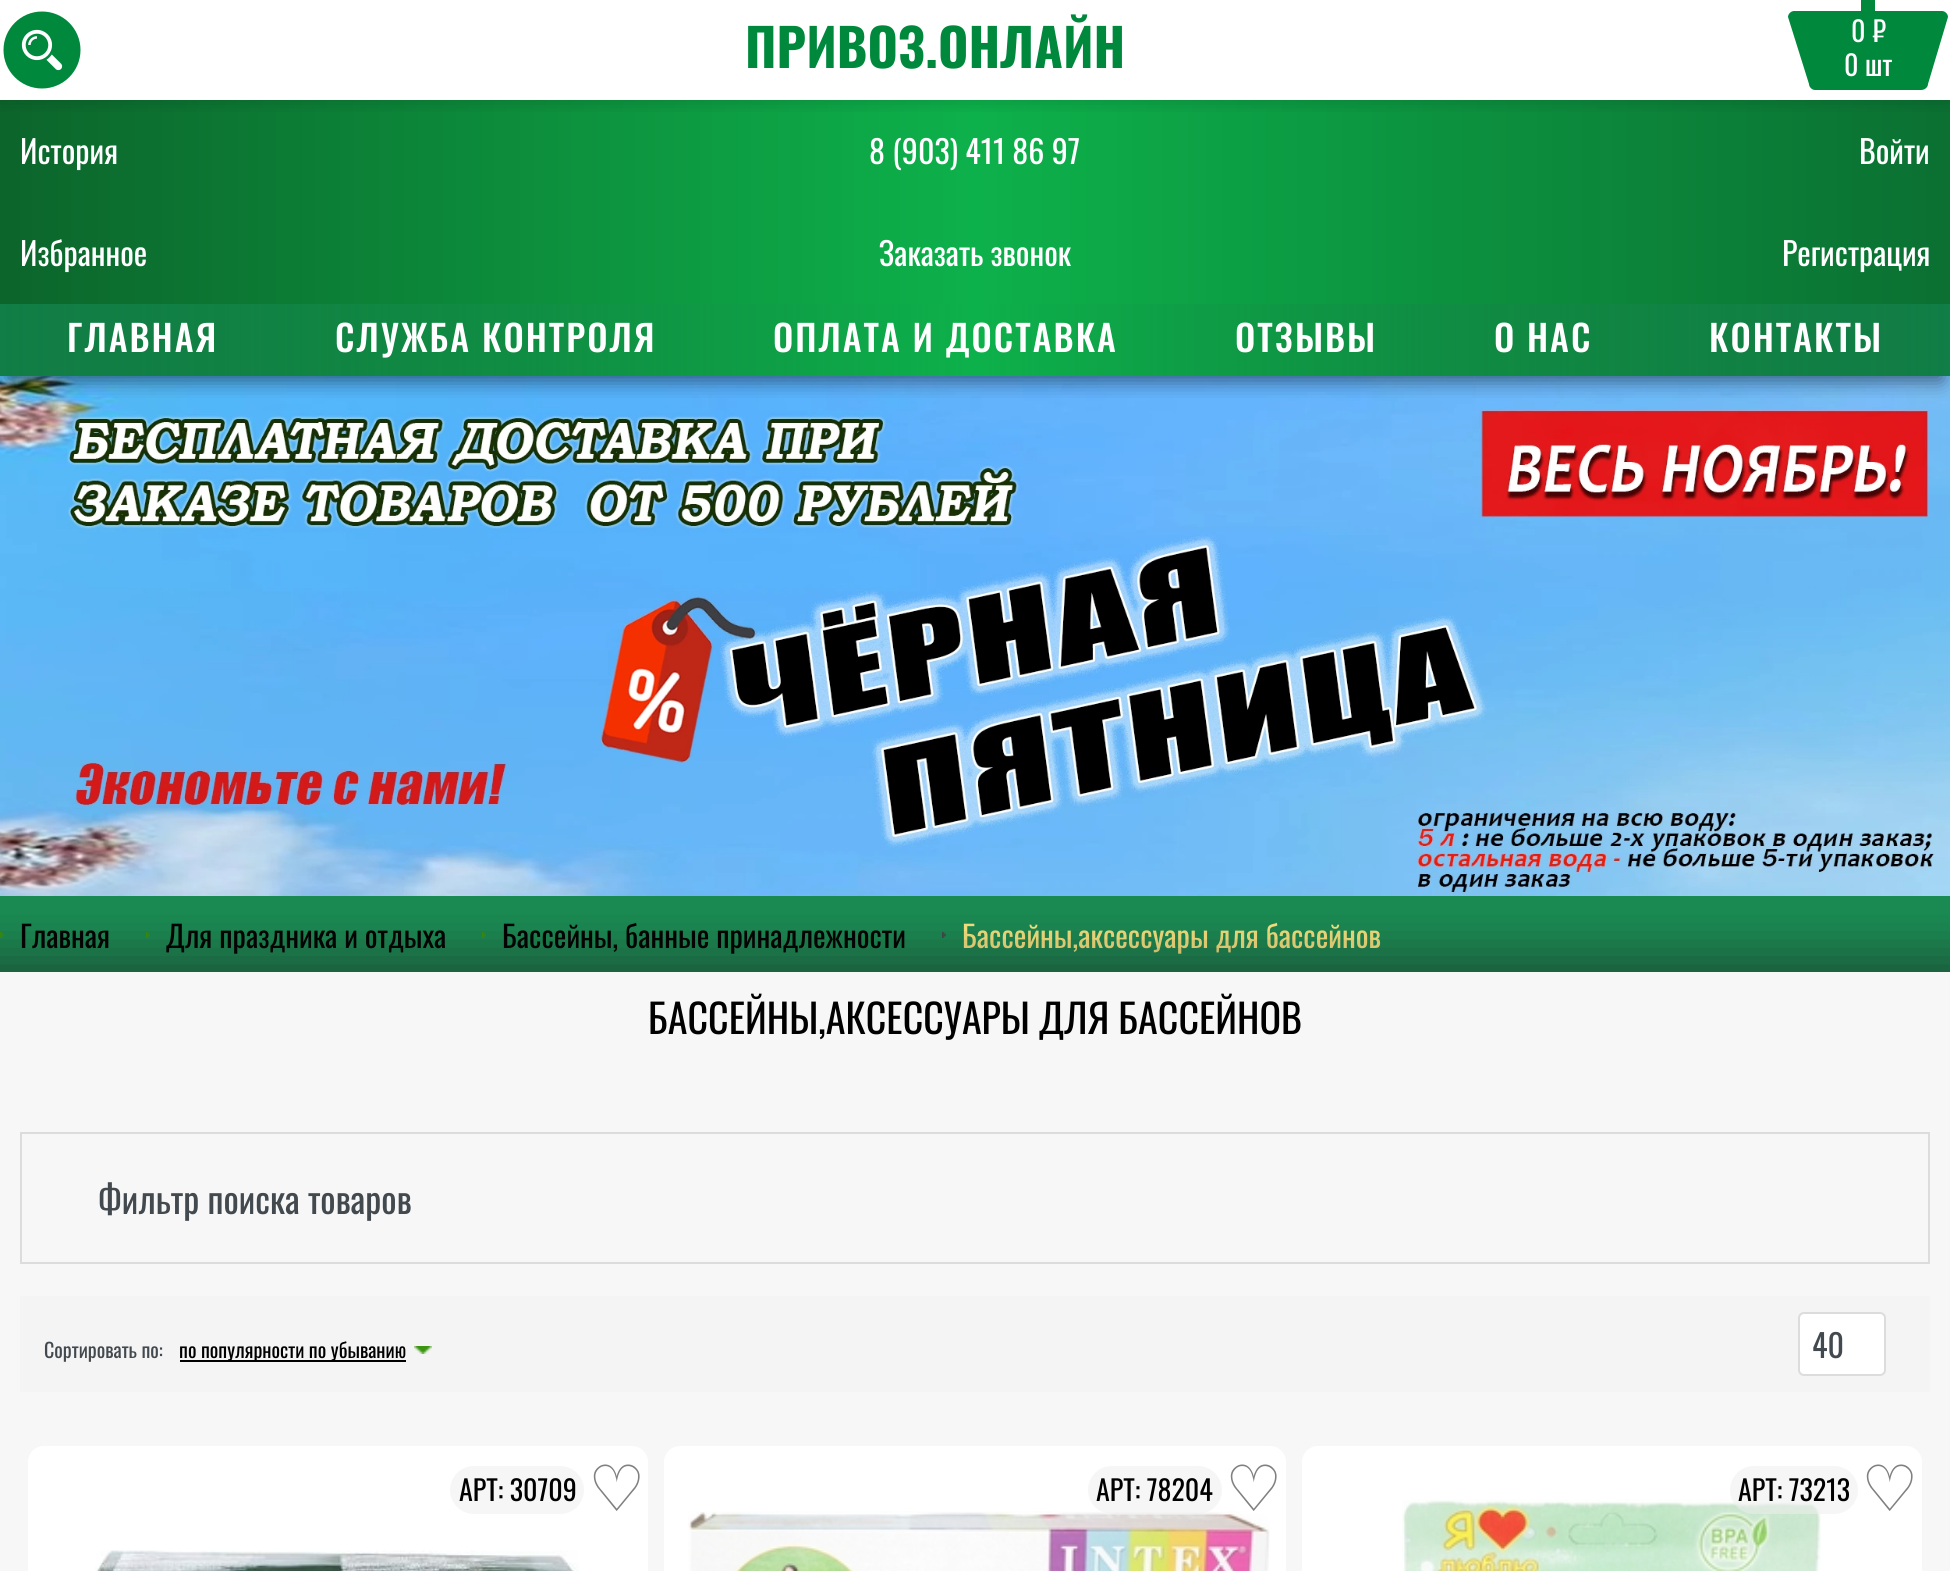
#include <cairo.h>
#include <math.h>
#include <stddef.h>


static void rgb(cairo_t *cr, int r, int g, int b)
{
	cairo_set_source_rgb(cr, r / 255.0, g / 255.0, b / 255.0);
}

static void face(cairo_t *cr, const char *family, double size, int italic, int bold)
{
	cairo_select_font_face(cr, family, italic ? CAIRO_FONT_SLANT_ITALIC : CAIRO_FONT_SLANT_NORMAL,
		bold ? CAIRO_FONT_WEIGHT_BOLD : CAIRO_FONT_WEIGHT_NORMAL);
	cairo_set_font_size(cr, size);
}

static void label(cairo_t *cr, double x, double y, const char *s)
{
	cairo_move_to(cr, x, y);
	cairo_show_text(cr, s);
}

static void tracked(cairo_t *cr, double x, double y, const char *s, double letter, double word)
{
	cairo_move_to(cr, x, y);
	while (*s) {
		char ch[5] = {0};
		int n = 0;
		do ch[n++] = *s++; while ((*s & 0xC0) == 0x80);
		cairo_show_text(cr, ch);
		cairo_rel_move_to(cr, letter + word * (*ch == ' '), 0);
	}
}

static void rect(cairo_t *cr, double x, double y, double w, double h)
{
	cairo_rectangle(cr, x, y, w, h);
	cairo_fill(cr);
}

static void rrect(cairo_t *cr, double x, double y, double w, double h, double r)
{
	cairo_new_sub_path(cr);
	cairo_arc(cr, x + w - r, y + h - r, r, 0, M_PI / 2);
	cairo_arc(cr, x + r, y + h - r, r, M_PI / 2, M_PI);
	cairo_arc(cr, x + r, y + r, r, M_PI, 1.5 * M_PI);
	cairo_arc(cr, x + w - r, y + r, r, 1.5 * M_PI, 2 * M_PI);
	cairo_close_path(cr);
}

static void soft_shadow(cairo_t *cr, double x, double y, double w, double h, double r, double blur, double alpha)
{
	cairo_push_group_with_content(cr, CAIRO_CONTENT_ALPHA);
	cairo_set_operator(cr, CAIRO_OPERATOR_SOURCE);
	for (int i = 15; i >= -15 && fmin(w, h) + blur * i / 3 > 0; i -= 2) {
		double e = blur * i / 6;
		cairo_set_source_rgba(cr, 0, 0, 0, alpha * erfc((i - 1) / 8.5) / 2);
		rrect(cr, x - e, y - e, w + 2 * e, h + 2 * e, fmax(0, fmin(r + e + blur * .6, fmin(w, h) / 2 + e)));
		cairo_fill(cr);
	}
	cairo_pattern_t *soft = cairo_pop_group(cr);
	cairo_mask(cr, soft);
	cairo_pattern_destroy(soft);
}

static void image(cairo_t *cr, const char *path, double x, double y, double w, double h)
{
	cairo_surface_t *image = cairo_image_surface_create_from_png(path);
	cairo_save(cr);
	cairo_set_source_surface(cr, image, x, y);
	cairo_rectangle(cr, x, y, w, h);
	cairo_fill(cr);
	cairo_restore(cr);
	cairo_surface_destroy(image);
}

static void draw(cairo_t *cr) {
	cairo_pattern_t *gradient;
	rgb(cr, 255, 255, 255);
	cairo_paint(cr);
	gradient = cairo_pattern_create_linear(0, 340, 1950, 340);
	cairo_pattern_add_color_stop_rgba(gradient, 0, 0.086, 0.565, 0.357, 1);
	cairo_pattern_add_color_stop_rgba(gradient, 0.5, 0.102, 0.545, 0.325, 1);
	cairo_pattern_add_color_stop_rgba(gradient, 1, 0.086, 0.565, 0.357, 1);
	cairo_set_source(cr, gradient);
	cairo_pattern_destroy(gradient);
	rect(cr, 0, 304, 1950, 72);
	image(cr, "image1.png", 0, 376, 1950, 520);
	cairo_save(cr);
	cairo_rectangle(cr, 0, 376, 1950, 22);
	cairo_clip(cr);
	rgb(cr, 0, 0, 0);
	soft_shadow(cr, 8, 324, 1934, 56, 0, 10, 0.53);
	cairo_restore(cr);
	gradient = cairo_pattern_create_linear(0, 202, 1950, 202);
	cairo_pattern_add_color_stop_rgba(gradient, 0, 0.047, 0.396, 0.169, 1);
	cairo_pattern_add_color_stop_rgba(gradient, 0.5, 0.051, 0.694, 0.294, 1);
	cairo_pattern_add_color_stop_rgba(gradient, 1, 0.043, 0.439, 0.196, 1);
	cairo_set_source(cr, gradient);
	cairo_pattern_destroy(gradient);
	rect(cr, 0, 100, 1950, 204);
	cairo_save(cr);
	cairo_rectangle(cr, 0, 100, 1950, 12);
	cairo_clip(cr);
	rgb(cr, 0, 0, 0);
	soft_shadow(cr, 0, 0, 1950, 100, 0, 10, 0.18);
	cairo_restore(cr);
	image(cr, "image0.png", 3, 11, 78, 78);
	face(cr, "Oswald", 52, 0, 1);
	rgb(cr, 0, 137, 61);
	label(cr, 745, 68, "ПРИВОЗ.ОНЛАЙН");
	cairo_new_path(cr);
	cairo_move_to(cr, 1942, 11);
	cairo_line_to(cr, 1875, 11);
	cairo_line_to(cr, 1875, -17);
	cairo_curve_to(cr, 1890, -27, 1875, -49, 1861, -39);
	cairo_curve_to(cr, 1858, -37, 1856, -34, 1855, -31);
	cairo_curve_to(cr, 1854, -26, 1856, -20, 1861, -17);
	cairo_line_to(cr, 1861, 11);
	cairo_line_to(cr, 1794, 11);
	cairo_curve_to(cr, 1791, 11, 1788, 14, 1788, 17);
	cairo_line_to(cr, 1809, 84);
	cairo_curve_to(cr, 1809, 87, 1812, 90, 1815, 90);
	cairo_line_to(cr, 1921, 90);
	cairo_curve_to(cr, 1925, 90, 1928, 87, 1928, 84);
	cairo_line_to(cr, 1948, 17);
	cairo_curve_to(cr, 1948, 14, 1945, 11, 1942, 11);
	cairo_close_path(cr);
	cairo_fill(cr);
	face(cr, "Oswald", 28, 0, 0);
	rgb(cr, 255, 255, 255);
	label(cr, 1851, 42, "0 ₽");
	label(cr, 1844, 76, "0 шт");
	face(cr, "Oswald", 32, 0, 0);
	label(cr, 20, 164, "История");
	label(cr, 869, 164, "8 (903) 411 86 97");
	label(cr, 1859, 164, "Войти");
	label(cr, 20, 266, "Избранное");
	label(cr, 879, 266, "Заказать звонок");
	label(cr, 1782, 266, "Регистрация");
	gradient = cairo_pattern_create_linear(0, 340, 1950, 340);
	cairo_pattern_add_color_stop_rgba(gradient, 0, 0.047, 0.396, 0.169, 0.43);
	cairo_pattern_add_color_stop_rgba(gradient, 0.5, 0.051, 0.694, 0.294, 1);
	cairo_pattern_add_color_stop_rgba(gradient, 1, 0.047, 0.396, 0.169, 0.43);
	cairo_set_source(cr, gradient);
	cairo_pattern_destroy(gradient);
	rect(cr, 0, 304, 1950, 72);
	face(cr, "Oswald Medium", 36, 0, 0);
	rgb(cr, 255, 255, 255);
	tracked(cr, 67, 352, "ГЛАВНАЯ", 2, 0);
	tracked(cr, 335, 352, "СЛУЖБА КОНТРОЛЯ", 2, 0);
	tracked(cr, 773, 352, "ОПЛАТА И ДОСТАВКА", 2, 0);
	tracked(cr, 1235, 352, "ОТЗЫВЫ", 2, 0);
	tracked(cr, 1494, 352, "О НАС", 2, 0);
	tracked(cr, 1709, 352, "КОНТАКТЫ", 2, 0);
	rgb(cr, 26, 139, 83);
	rect(cr, 0, 896, 1950, 76);
	image(cr, "image2.png", 0, 932, 4, 6);
	face(cr, "Oswald", 30, 0, 0);
	rgb(cr, 0, 0, 0);
	label(cr, 20, 948, "Главная");
	image(cr, "image2.png", 146, 932, 4, 6);
	label(cr, 166, 948, "Для праздника и отдыха");
	image(cr, "image2.png", 482, 932, 4, 6);
	label(cr, 502, 948, "Бассейны, банные принадлежности");
	image(cr, "image3.png", 942, 932, 4, 6);
	rgb(cr, 255, 234, 130);
	label(cr, 962, 948, "Бассейны,аксессуары для бассейнов");
	rgb(cr, 27, 27, 27);
	soft_shadow(cr, -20, 952, 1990, 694, 0, 25, 0.45);
	rgb(cr, 247, 247, 247);
	rect(cr, 0, 972, 1950, 599);
	face(cr, "Oswald", 40, 0, 0);
	rgb(cr, 0, 0, 0);
	label(cr, 648, 1034, "БАССЕЙНЫ,АКСЕССУАРЫ ДЛЯ БАССЕЙНОВ");
	cairo_rectangle(cr, 21, 1133, 1908, 130);
	rgb(cr, 220, 220, 220);
	cairo_stroke(cr);
	face(cr, "Oswald", 36, 0, 0);
	rgb(cr, 66, 73, 79);
	label(cr, 98, 1214, "Фильтр поиска товаров");
	rgb(cr, 244, 244, 244);
	rect(cr, 20, 1296, 1910, 96);
	face(cr, "Oswald", 20, 0, 0);
	rgb(cr, 66, 73, 79);
	label(cr, 44, 1358, "Сортировать по:");
	rgb(cr, 0, 0, 0);
	rect(cr, 180, 1360, 226, 2);
	label(cr, 179, 1358, "по популярности по убыванию");
	image(cr, "image4.png", 414, 1346, 18, 8);
	rgb(cr, 255, 255, 255);
	rrect(cr, 1799, 1313, 86, 62, 5);
	cairo_fill_preserve(cr);
	rgb(cr, 220, 220, 220);
	cairo_stroke(cr);
	face(cr, "Oswald", 32, 0, 0);
	rgb(cr, 66, 73, 79);
	label(cr, 1812, 1358, "40");
	rgb(cr, 255, 255, 255);
	rrect(cr, 28, 1446, 620, 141, 16);
	cairo_fill(cr);
	rgb(cr, 246, 246, 246);
	rrect(cr, 450, 1466, 134, 48, 24);
	cairo_fill(cr);
	face(cr, "Oswald", 28, 0, 0);
	rgb(cr, 0, 0, 0);
	label(cr, 459, 1501, "АРТ: 30709");
	face(cr, "DejaVu Sans", 64, 0, 0);
	rgb(cr, 128, 128, 128);
	label(cr, 588, 1511, "♡");
	image(cr, "image5.png", 95, 1550, 484, 21);
	rgb(cr, 255, 255, 255);
	rrect(cr, 664, 1446, 622, 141, 16);
	cairo_fill(cr);
	image(cr, "image6.png", 688, 1511, 582, 60);
	cairo_set_source_rgba(cr, 0.933, 0.933, 0.933, 0.53);
	rrect(cr, 1088, 1466, 134, 48, 24);
	cairo_fill(cr);
	face(cr, "Oswald", 28, 0, 0);
	rgb(cr, 0, 0, 0);
	label(cr, 1096, 1501, "АРТ: 78204");
	face(cr, "DejaVu Sans", 64, 0, 0);
	rgb(cr, 128, 128, 128);
	label(cr, 1225, 1511, "♡");
	rgb(cr, 255, 255, 255);
	rrect(cr, 1302, 1446, 620, 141, 16);
	cairo_fill(cr);
	image(cr, "image7.png", 1402, 1499, 419, 72);
	cairo_set_source_rgba(cr, 0.933, 0.933, 0.933, 0.53);
	rrect(cr, 1730, 1466, 128, 48, 24);
	cairo_fill(cr);
	face(cr, "Oswald", 28, 0, 0);
	rgb(cr, 0, 0, 0);
	label(cr, 1738, 1501, "АРТ: 73213");
	face(cr, "DejaVu Sans", 64, 0, 0);
	rgb(cr, 128, 128, 128);
	label(cr, 1861, 1511, "♡");
}

int main(void) {
	cairo_surface_t *surface = cairo_image_surface_create(CAIRO_FORMAT_RGB24, 1950, 1571);
	cairo_t *cr = cairo_create(surface);
	cairo_font_options_t *options = cairo_font_options_create();
	cairo_font_options_set_hint_metrics(options, CAIRO_HINT_METRICS_OFF);
	cairo_font_options_set_hint_style(options, CAIRO_HINT_STYLE_NONE);
	cairo_set_font_options(cr, options);
	cairo_set_miter_limit(cr, 4);
	draw(cr);
	cairo_surface_write_to_png(surface, "render.png");
	cairo_font_options_destroy(options);
	cairo_destroy(cr);
	cairo_surface_destroy(surface);
	return 0;
}
